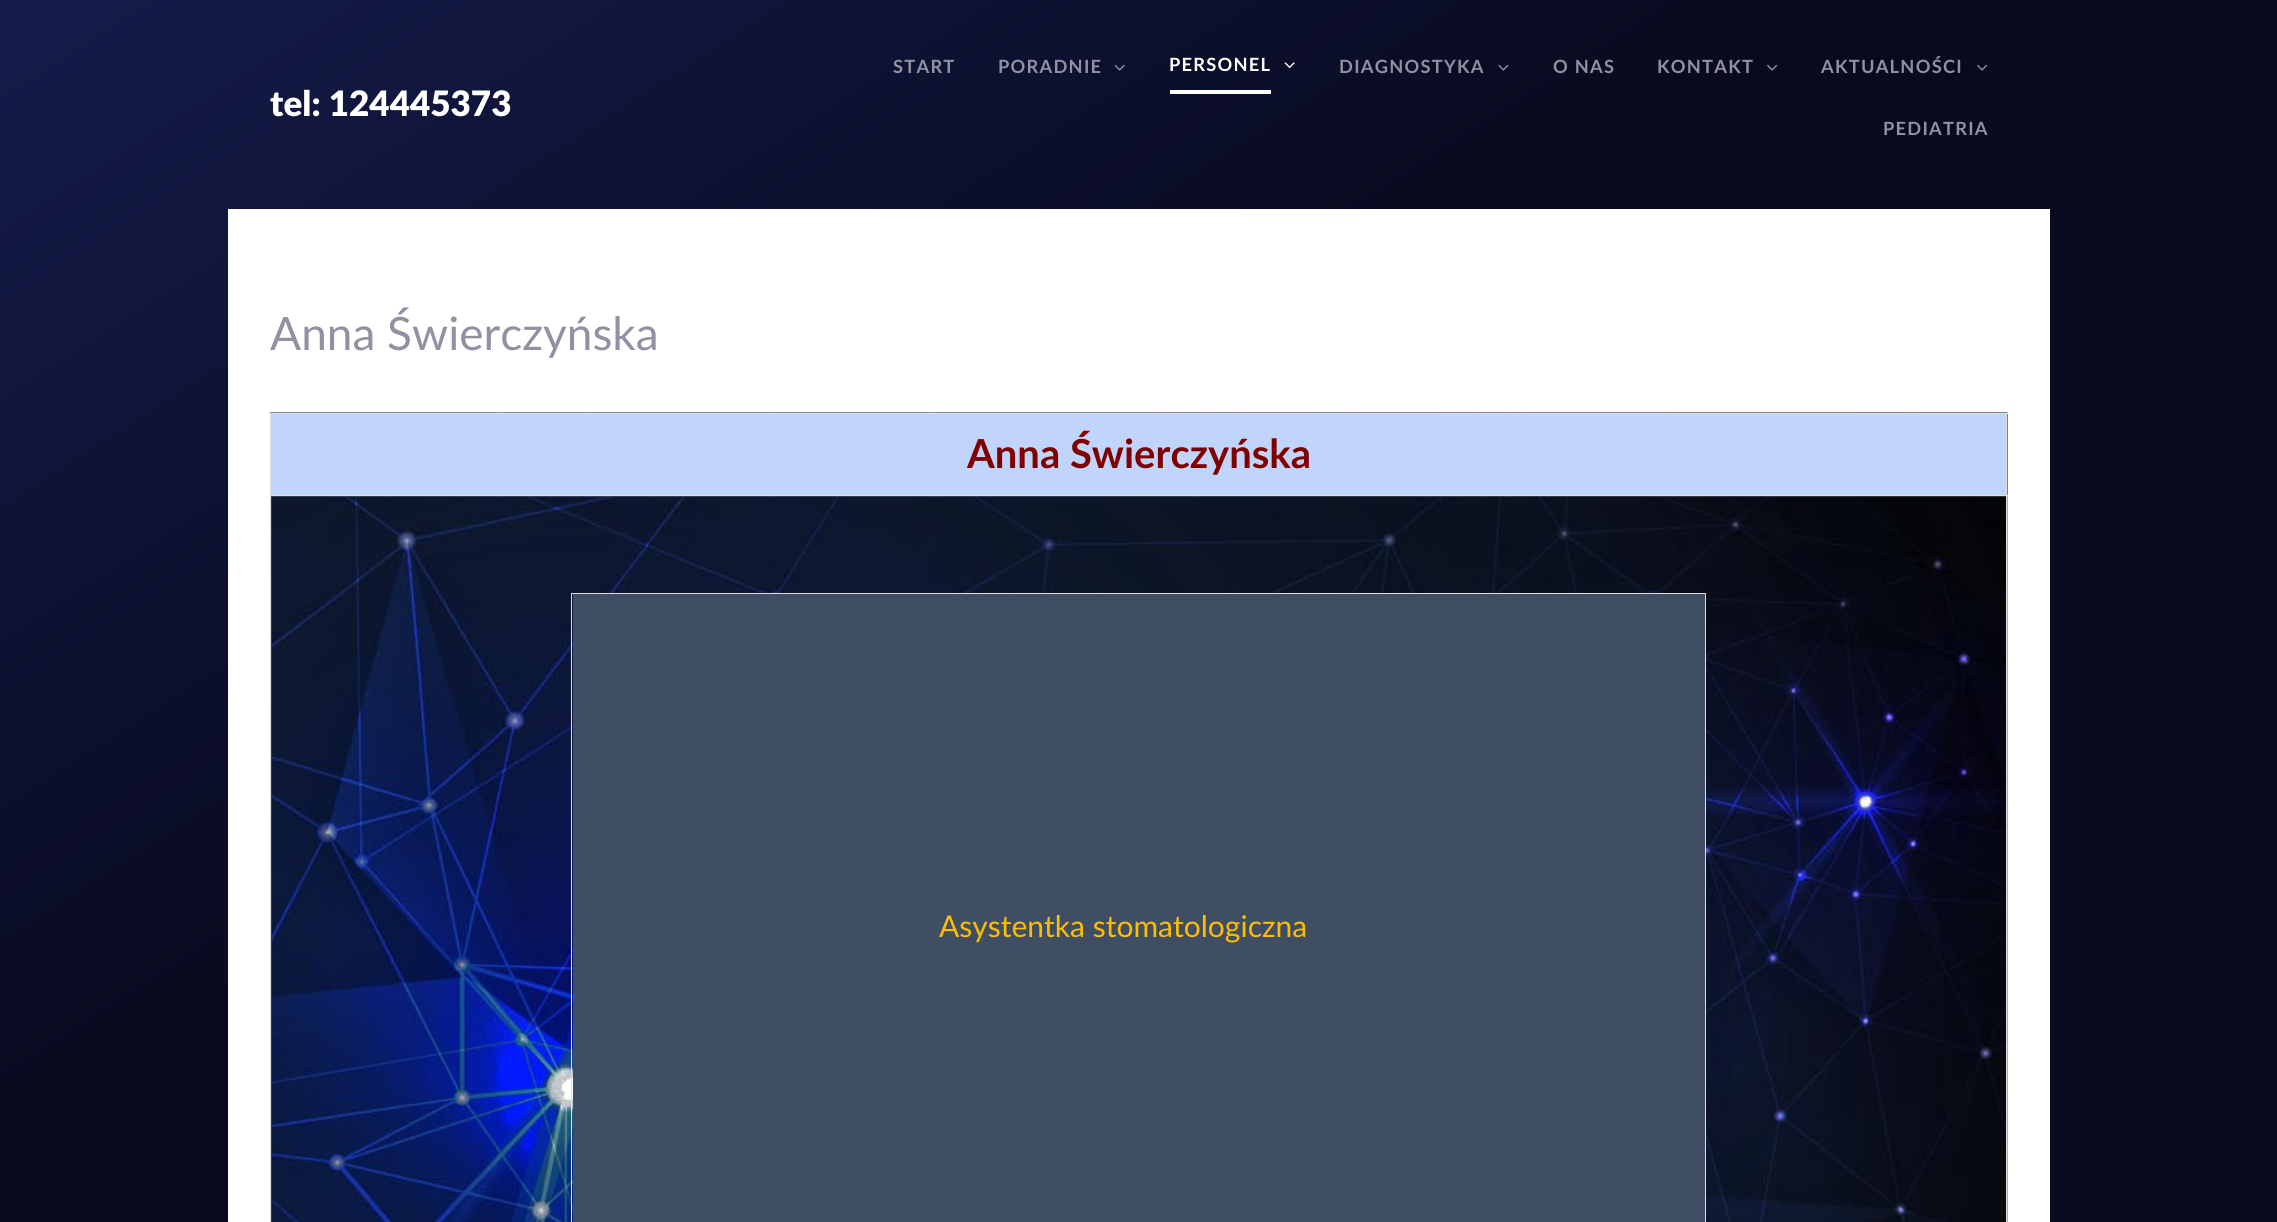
#include <cairo.h>
#include <math.h>
#include <stddef.h>


static void rgb(cairo_t *cr, int r, int g, int b)
{
	cairo_set_source_rgb(cr, r / 255.0, g / 255.0, b / 255.0);
}

static void face(cairo_t *cr, const char *family, double size, int italic, int bold)
{
	cairo_select_font_face(cr, family, italic ? CAIRO_FONT_SLANT_ITALIC : CAIRO_FONT_SLANT_NORMAL,
		bold ? CAIRO_FONT_WEIGHT_BOLD : CAIRO_FONT_WEIGHT_NORMAL);
	cairo_set_font_size(cr, size);
}

static void label(cairo_t *cr, double x, double y, const char *s)
{
	cairo_move_to(cr, x, y);
	cairo_show_text(cr, s);
}

static void tracked(cairo_t *cr, double x, double y, const char *s, double letter, double word)
{
	cairo_move_to(cr, x, y);
	while (*s) {
		char ch[5] = {0};
		int n = 0;
		do ch[n++] = *s++; while ((*s & 0xC0) == 0x80);
		cairo_show_text(cr, ch);
		cairo_rel_move_to(cr, letter + word * (*ch == ' '), 0);
	}
}

static void rect(cairo_t *cr, double x, double y, double w, double h)
{
	cairo_rectangle(cr, x, y, w, h);
	cairo_fill(cr);
}

static void image(cairo_t *cr, const char *path, double x, double y, double w, double h)
{
	cairo_surface_t *image = cairo_image_surface_create_from_png(path);
	cairo_save(cr);
	cairo_set_source_surface(cr, image, x, y);
	cairo_rectangle(cr, x, y, w, h);
	cairo_fill(cr);
	cairo_restore(cr);
	cairo_surface_destroy(image);
}

static void draw(cairo_t *cr) {
	cairo_pattern_t *gradient;
	rgb(cr, 255, 255, 255);
	cairo_paint(cr);
	gradient = cairo_pattern_create_linear(473, -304, 1805, 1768);
	cairo_pattern_add_color_stop_rgba(gradient, 0, 0.078, 0.11, 0.294, 1);
	cairo_pattern_add_color_stop_rgba(gradient, 0.4, 0.035, 0.039, 0.118, 1);
	cairo_set_source(cr, gradient);
	cairo_pattern_destroy(gradient);
	rect(cr, 0, 0, 2277, 1222);
	face(cr, "Lato Black", 35, 0, 0);
	rgb(cr, 255, 255, 255);
	label(cr, 270, 116, "tel: 124445373");
	face(cr, "Lato", 18.25, 0, 1);
	rgb(cr, 144, 145, 162);
	tracked(cr, 893, 73, "START", 1.25, 0);
	tracked(cr, 998, 73, "PORADNIE", 1.25, 0);
	image(cr, "image0.png", 1114, 64, 11, 7);
	rgb(cr, 255, 255, 255);
	rect(cr, 1170, 90, 101, 4);
	tracked(cr, 1169, 71, "PERSONEL", 1.25, 0);
	image(cr, "image1.png", 1284, 62, 11, 7);
	rgb(cr, 144, 145, 162);
	tracked(cr, 1339, 73, "DIAGNOSTYKA", 1.25, 0);
	image(cr, "image2.png", 1498, 64, 11, 7);
	tracked(cr, 1553, 73, "O NAS", 1.25, 0);
	tracked(cr, 1657, 73, "KONTAKT", 1.25, 0);
	image(cr, "image3.png", 1767, 64, 11, 7);
	tracked(cr, 1821, 73, "AKTUALNOŚCI", 1.25, 0);
	image(cr, "image3.png", 1977, 64, 11, 7);
	tracked(cr, 1883, 135, "PEDIATRIA", 1.25, 0);
	rgb(cr, 255, 255, 255);
	rect(cr, 228, 209, 1822, 1013);
	face(cr, "Lato", 46, 0, 0);
	rgb(cr, 144, 145, 162);
	label(cr, 270, 350, "Anna Świerczyńska");
	image(cr, "image4.png", 270, 412, 1738, 810);
	rgb(cr, 222, 222, 222);
	rect(cr, 270, 413, 1738, 1);
	rect(cr, 2006, 413, 1, 809);
	rect(cr, 270, 413, 1, 82);
	rgb(cr, 192, 212, 252);
	rect(cr, 271, 414, 1735, 81);
	face(cr, "Lato", 40, 0, 1);
	rgb(cr, 128, 0, 0);
	label(cr, 967, 468, "Anna Świerczyńska");
	rgb(cr, 180, 208, 244);
	rect(cr, 271, 496, 1735, 726);
	image(cr, "image5.png", 271, 496, 1735, 726);
	rgb(cr, 222, 222, 222);
	rect(cr, 2007, 495, 1, 1);
	rect(cr, 571, 593, 1135, 1);
	rect(cr, 1705, 593, 1, 629);
	rect(cr, 571, 593, 1, 629);
	rgb(cr, 64, 78, 100);
	rect(cr, 573, 594, 1132, 628);
	face(cr, "Lato", 30, 0, 0);
	rgb(cr, 255, 189, 0);
	label(cr, 939, 937, "Asystentka stomatologiczna");
}

int main(void) {
	cairo_surface_t *surface = cairo_image_surface_create(CAIRO_FORMAT_RGB24, 2277, 1222);
	cairo_t *cr = cairo_create(surface);
	cairo_font_options_t *options = cairo_font_options_create();
	cairo_font_options_set_hint_metrics(options, CAIRO_HINT_METRICS_OFF);
	cairo_font_options_set_hint_style(options, CAIRO_HINT_STYLE_NONE);
	cairo_set_font_options(cr, options);
	cairo_set_miter_limit(cr, 4);
	draw(cr);
	cairo_surface_write_to_png(surface, "render.png");
	cairo_font_options_destroy(options);
	cairo_destroy(cr);
	cairo_surface_destroy(surface);
	return 0;
}
